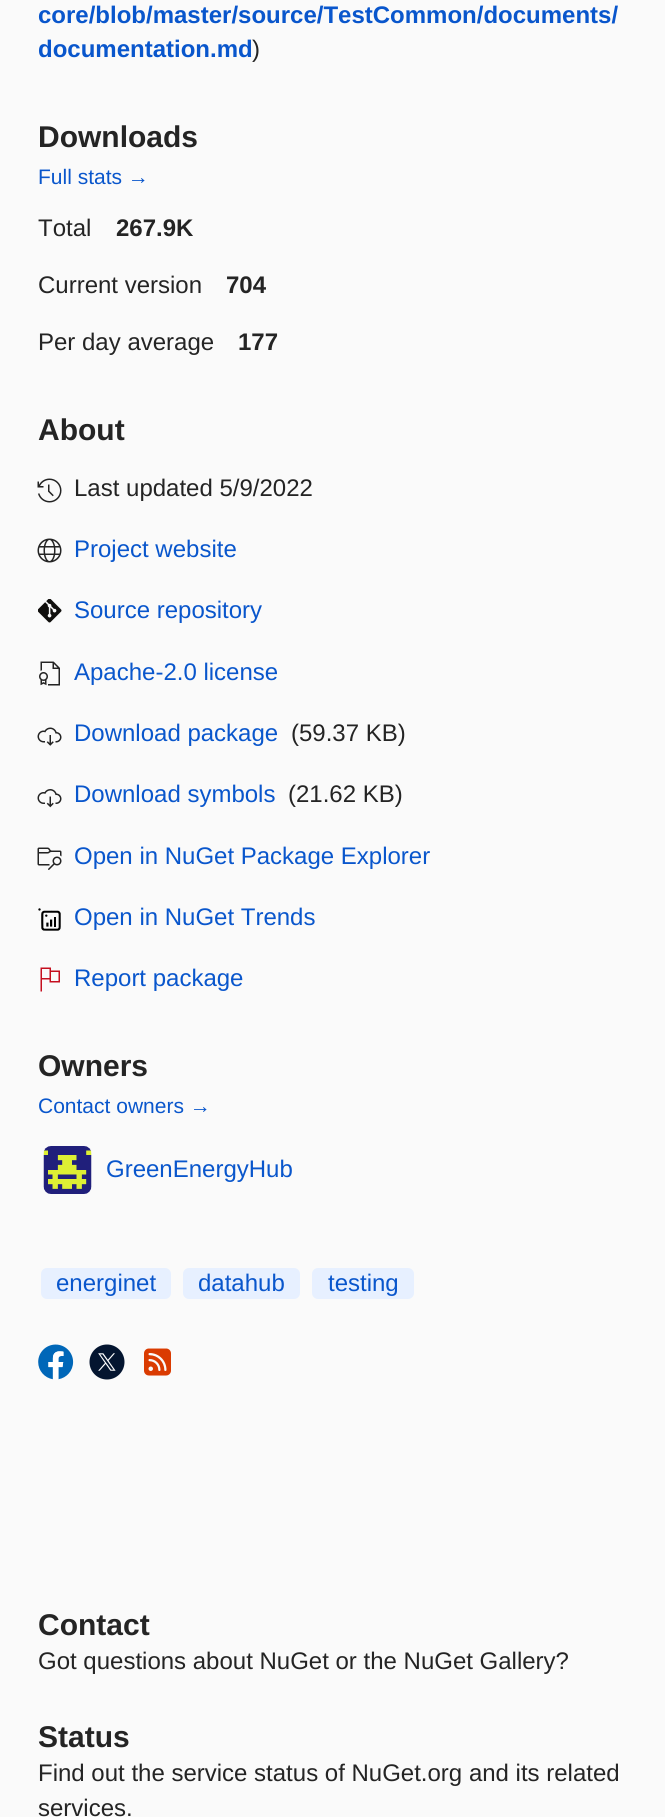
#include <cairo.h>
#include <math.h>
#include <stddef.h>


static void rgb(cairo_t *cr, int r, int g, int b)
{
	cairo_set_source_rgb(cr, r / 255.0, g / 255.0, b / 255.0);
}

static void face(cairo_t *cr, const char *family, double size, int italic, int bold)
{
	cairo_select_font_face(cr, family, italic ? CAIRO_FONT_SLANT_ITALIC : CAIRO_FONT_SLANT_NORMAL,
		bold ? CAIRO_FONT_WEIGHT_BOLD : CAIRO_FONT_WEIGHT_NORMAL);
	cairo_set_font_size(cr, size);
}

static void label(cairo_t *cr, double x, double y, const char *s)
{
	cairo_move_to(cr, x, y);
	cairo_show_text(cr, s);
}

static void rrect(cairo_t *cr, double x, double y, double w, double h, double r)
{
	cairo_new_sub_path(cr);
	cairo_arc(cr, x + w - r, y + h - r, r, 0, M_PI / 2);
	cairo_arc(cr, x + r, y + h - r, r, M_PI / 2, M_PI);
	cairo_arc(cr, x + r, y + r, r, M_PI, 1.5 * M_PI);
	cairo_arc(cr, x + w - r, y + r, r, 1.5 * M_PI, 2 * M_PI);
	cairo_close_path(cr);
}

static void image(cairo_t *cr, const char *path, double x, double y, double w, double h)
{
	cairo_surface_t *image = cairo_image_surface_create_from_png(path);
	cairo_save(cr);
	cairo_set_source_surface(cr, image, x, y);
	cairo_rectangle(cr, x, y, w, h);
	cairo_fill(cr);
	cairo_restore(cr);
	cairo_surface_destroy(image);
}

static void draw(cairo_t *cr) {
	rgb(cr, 250, 250, 250);
	cairo_paint(cr);
	face(cr, "Liberation Sans", 24, 0, 1);
	rgb(cr, 9, 86, 204);
	label(cr, 38, 23, "core/blob/master/source/TestCommon/documents/");
	label(cr, 38, 57, "documentation.md");
	face(cr, "Liberation Sans", 24, 0, 0);
	rgb(cr, 36, 36, 36);
	label(cr, 252, 57, ")");
	face(cr, "Liberation Sans", 30, 0, 1);
	label(cr, 38, 147, "Downloads");
	face(cr, "Liberation Sans", 21, 0, 0);
	rgb(cr, 9, 86, 204);
	label(cr, 38, 184, "Full stats →");
	face(cr, "Liberation Sans", 24, 0, 0);
	rgb(cr, 36, 36, 36);
	label(cr, 38, 236, "Total");
	face(cr, "Liberation Sans", 24, 0, 1);
	label(cr, 116, 236, "267.9K");
	face(cr, "Liberation Sans", 24, 0, 0);
	label(cr, 38, 293, "Current version");
	face(cr, "Liberation Sans", 24, 0, 1);
	label(cr, 226, 293, "704");
	face(cr, "Liberation Sans", 24, 0, 0);
	label(cr, 38, 350, "Per day average");
	face(cr, "Liberation Sans", 24, 0, 1);
	label(cr, 238, 350, "177");
	face(cr, "Liberation Sans", 30, 0, 1);
	label(cr, 38, 440, "About");
	image(cr, "image0.png", 37, 478, 25, 25);
	face(cr, "Liberation Sans", 24, 0, 0);
	label(cr, 74, 496, "Last updated 5/9/2022");
	image(cr, "image1.png", 37, 538, 25, 25);
	rgb(cr, 9, 86, 204);
	label(cr, 74, 557, "Project website");
	image(cr, "image2.png", 38, 599, 24, 24);
	label(cr, 74, 618, "Source repository");
	image(cr, "image3.png", 39, 661, 21, 25);
	label(cr, 74, 680, "Apache-2.0 license");
	image(cr, "image4.png", 37, 727, 25, 19);
	label(cr, 74, 741, "Download package");
	rgb(cr, 36, 36, 36);
	label(cr, 291, 741, "(59.37 KB)");
	image(cr, "image5.png", 37, 789, 25, 19);
	rgb(cr, 9, 86, 204);
	label(cr, 74, 802, "Download symbols");
	rgb(cr, 36, 36, 36);
	label(cr, 288, 802, "(21.62 KB)");
	image(cr, "image6.png", 37, 847, 25, 23);
	rgb(cr, 9, 86, 204);
	label(cr, 74, 864, "Open in NuGet Package Explorer");
	image(cr, "image7.png", 38, 908, 23, 23);
	label(cr, 74, 925, "Open in NuGet Trends");
	image(cr, "image8.png", 40, 967, 20, 25);
	label(cr, 74, 986, "Report package");
	face(cr, "Liberation Sans", 30, 0, 1);
	rgb(cr, 36, 36, 36);
	label(cr, 38, 1076, "Owners");
	face(cr, "Liberation Sans", 21, 0, 0);
	rgb(cr, 9, 86, 204);
	label(cr, 38, 1113, "Contact owners →");
	image(cr, "image9.png", 43, 1146, 49, 48);
	face(cr, "Liberation Sans", 24, 0, 0);
	label(cr, 106, 1177, "GreenEnergyHub");
	rgb(cr, 231, 240, 255);
	rrect(cr, 41, 1268, 130, 31, 6);
	cairo_fill(cr);
	rgb(cr, 9, 86, 204);
	label(cr, 56, 1291, "energinet");
	rgb(cr, 231, 240, 255);
	rrect(cr, 183, 1268, 117, 31, 6);
	cairo_fill(cr);
	rgb(cr, 9, 86, 204);
	label(cr, 198, 1291, "datahub");
	rgb(cr, 231, 240, 255);
	rrect(cr, 312, 1268, 102, 31, 6);
	cairo_fill(cr);
	rgb(cr, 9, 86, 204);
	label(cr, 328, 1291, "testing");
	image(cr, "image10.png", 38, 1344, 36, 36);
	image(cr, "image11.png", 89, 1344, 36, 36);
	image(cr, "image12.png", 144, 1348, 27, 28);
	face(cr, "Liberation Sans", 30, 0, 1);
	rgb(cr, 36, 36, 36);
	label(cr, 38, 1635, "Contact");
	face(cr, "Liberation Sans", 24, 0, 0);
	label(cr, 38, 1669, "Got questions about NuGet or the NuGet Gallery?");
	face(cr, "Liberation Sans", 30, 0, 1);
	label(cr, 38, 1747, "Status");
	face(cr, "Liberation Sans", 24, 0, 0);
	label(cr, 38, 1781, "Find out the service status of NuGet.org and its related");
	label(cr, 38, 1816, "services.");
}

int main(void) {
	cairo_surface_t *surface = cairo_image_surface_create(CAIRO_FORMAT_RGB24, 665, 1817);
	cairo_t *cr = cairo_create(surface);
	cairo_font_options_t *options = cairo_font_options_create();
	cairo_font_options_set_hint_metrics(options, CAIRO_HINT_METRICS_OFF);
	cairo_font_options_set_hint_style(options, CAIRO_HINT_STYLE_NONE);
	cairo_set_font_options(cr, options);
	cairo_set_miter_limit(cr, 4);
	draw(cr);
	cairo_surface_write_to_png(surface, "render.png");
	cairo_font_options_destroy(options);
	cairo_destroy(cr);
	cairo_surface_destroy(surface);
	return 0;
}
